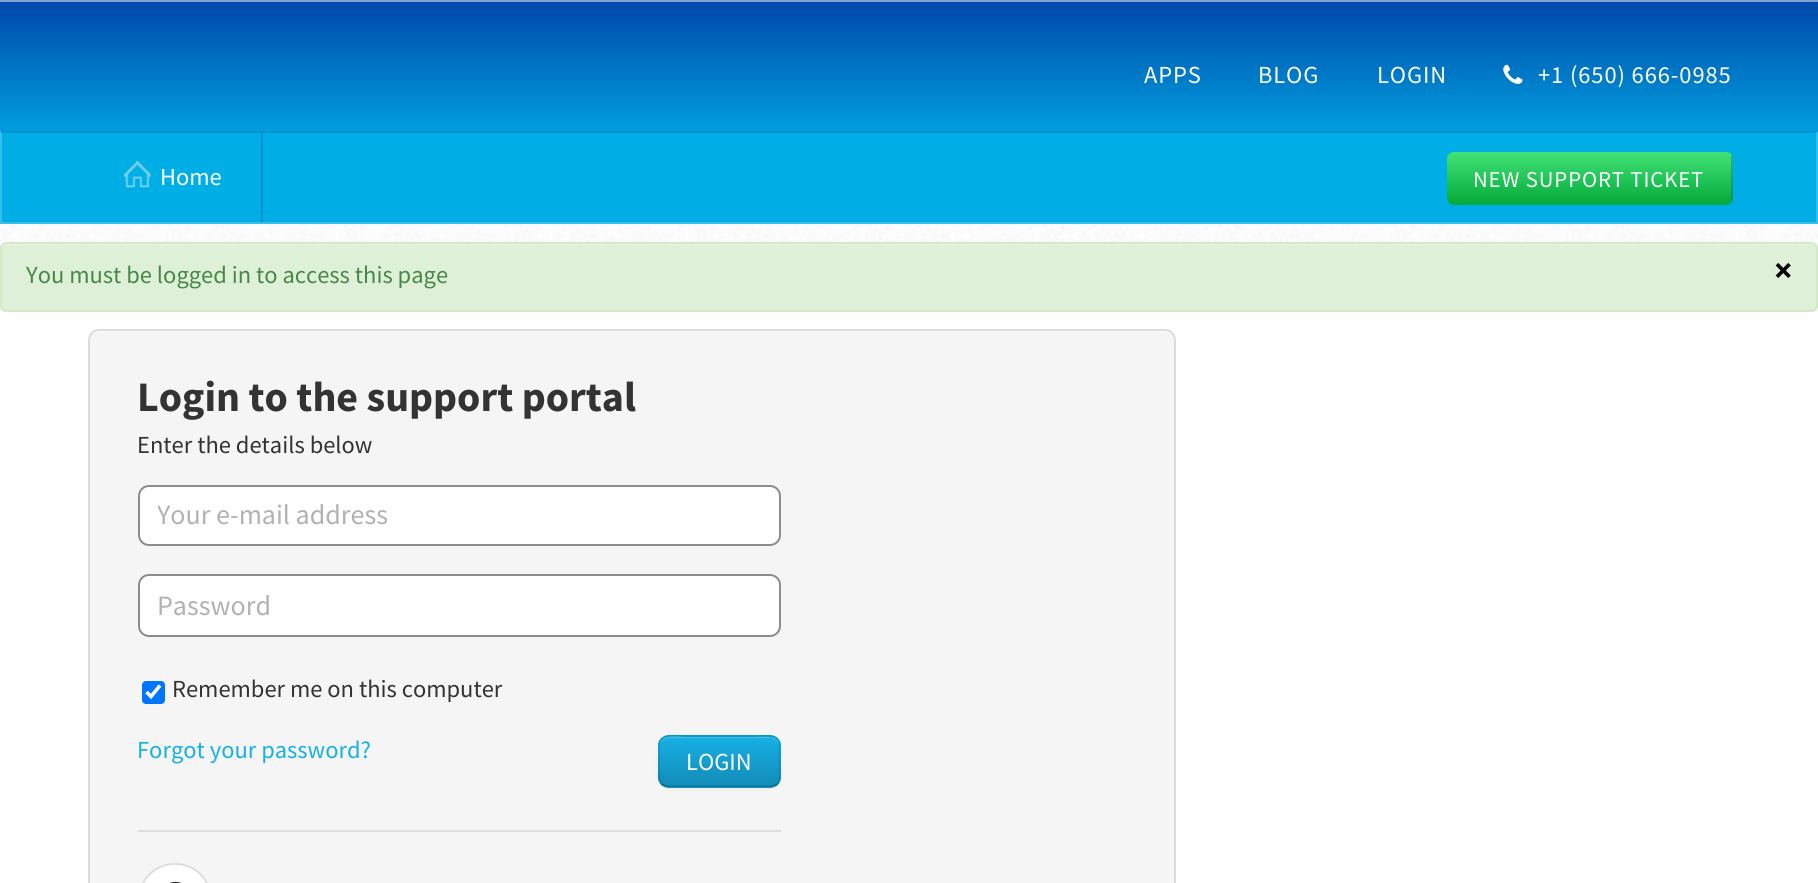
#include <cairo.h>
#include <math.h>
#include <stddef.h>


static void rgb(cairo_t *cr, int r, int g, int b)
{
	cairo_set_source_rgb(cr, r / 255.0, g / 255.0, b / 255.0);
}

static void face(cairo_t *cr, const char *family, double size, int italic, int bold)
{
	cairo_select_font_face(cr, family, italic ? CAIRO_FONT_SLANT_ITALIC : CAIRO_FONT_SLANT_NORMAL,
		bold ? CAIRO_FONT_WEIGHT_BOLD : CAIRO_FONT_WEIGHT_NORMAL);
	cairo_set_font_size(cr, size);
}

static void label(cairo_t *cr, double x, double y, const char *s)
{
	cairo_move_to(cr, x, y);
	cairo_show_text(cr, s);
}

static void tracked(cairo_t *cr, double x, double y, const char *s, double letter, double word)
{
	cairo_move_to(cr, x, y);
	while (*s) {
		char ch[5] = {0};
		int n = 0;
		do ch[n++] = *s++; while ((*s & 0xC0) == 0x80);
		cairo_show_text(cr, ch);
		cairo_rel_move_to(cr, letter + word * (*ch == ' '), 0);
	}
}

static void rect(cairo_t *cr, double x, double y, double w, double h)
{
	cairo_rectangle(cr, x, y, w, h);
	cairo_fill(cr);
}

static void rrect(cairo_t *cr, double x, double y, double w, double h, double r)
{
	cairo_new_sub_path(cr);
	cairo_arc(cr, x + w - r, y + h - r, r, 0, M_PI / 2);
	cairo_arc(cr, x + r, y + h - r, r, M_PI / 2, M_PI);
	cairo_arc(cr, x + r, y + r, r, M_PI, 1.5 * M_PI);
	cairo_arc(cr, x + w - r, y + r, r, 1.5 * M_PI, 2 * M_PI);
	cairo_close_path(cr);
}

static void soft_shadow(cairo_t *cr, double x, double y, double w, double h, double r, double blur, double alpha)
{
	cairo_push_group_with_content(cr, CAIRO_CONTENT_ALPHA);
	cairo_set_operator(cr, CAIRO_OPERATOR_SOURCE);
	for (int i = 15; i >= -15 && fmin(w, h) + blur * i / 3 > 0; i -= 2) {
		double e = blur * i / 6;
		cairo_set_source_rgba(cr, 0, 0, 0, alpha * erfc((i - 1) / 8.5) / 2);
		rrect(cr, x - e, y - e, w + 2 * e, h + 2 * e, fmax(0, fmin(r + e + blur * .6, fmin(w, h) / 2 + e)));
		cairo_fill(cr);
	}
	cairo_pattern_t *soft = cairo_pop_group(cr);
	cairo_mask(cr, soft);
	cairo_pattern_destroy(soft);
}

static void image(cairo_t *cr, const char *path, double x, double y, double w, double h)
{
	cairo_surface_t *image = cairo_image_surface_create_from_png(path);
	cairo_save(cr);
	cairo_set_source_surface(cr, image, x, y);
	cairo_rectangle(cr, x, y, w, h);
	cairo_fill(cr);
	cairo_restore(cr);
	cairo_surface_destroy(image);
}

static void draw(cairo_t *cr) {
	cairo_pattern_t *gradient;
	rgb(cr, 255, 255, 255);
	cairo_paint(cr);
	image(cr, "image0.png", 0, 224, 1818, 88);
	gradient = cairo_pattern_create_linear(909, 0, 909, 224);
	cairo_pattern_add_color_stop_rgba(gradient, 0, 0, 0.278, 0.667, 1);
	cairo_pattern_add_color_stop_rgba(gradient, 1, 0, 0.859, 1, 1);
	cairo_set_source(cr, gradient);
	cairo_pattern_destroy(gradient);
	rect(cr, 0, 2, 1818, 129);
	rgb(cr, 128, 163, 213);
	rect(cr, 0, 0, 1818, 2);
	face(cr, "Source Sans Pro", 24.5, 0, 0);
	rgb(cr, 255, 255, 255);
	tracked(cr, 1144, 83, "APPS", 0.9, 0);
	tracked(cr, 1258, 83, "BLOG", 0.9, 0);
	tracked(cr, 1377, 83, "LOGIN", 0.9, 0);
	image(cr, "image1.png", 1503, 64, 20, 20);
	tracked(cr, 1538, 83, "+1 (650) 666-0985", 0.9, 0);
	rgb(cr, 0, 174, 230);
	rect(cr, 0, 131, 1818, 93);
	rgb(cr, 0, 143, 212);
	cairo_new_path(cr);
	cairo_move_to(cr, 0, 131);
	cairo_line_to(cr, 1818, 131);
	cairo_line_to(cr, 1816, 133);
	cairo_line_to(cr, 2, 133);
	cairo_close_path(cr);
	cairo_fill(cr);
	cairo_set_source_rgba(cr, 1, 1, 1, 0.2);
	cairo_new_path(cr);
	cairo_move_to(cr, 1818, 131);
	cairo_line_to(cr, 1818, 224);
	cairo_line_to(cr, 1816, 222);
	cairo_line_to(cr, 1816, 133);
	cairo_close_path(cr);
	cairo_fill(cr);
	cairo_new_path(cr);
	cairo_move_to(cr, 1818, 224);
	cairo_line_to(cr, 0, 224);
	cairo_line_to(cr, 2, 222);
	cairo_line_to(cr, 1816, 222);
	cairo_close_path(cr);
	cairo_fill(cr);
	cairo_new_path(cr);
	cairo_move_to(cr, 0, 224);
	cairo_line_to(cr, 0, 131);
	cairo_line_to(cr, 2, 133);
	cairo_line_to(cr, 2, 222);
	cairo_close_path(cr);
	cairo_fill(cr);
	rgb(cr, 0, 143, 212);
	rect(cr, 261, 133, 2, 89);
	image(cr, "image2.png", 124, 161, 27, 27);
	rgb(cr, 255, 255, 255);
	label(cr, 160, 185, "Home");
	gradient = cairo_pattern_create_linear(1589, 152, 1589, 205);
	cairo_pattern_add_color_stop_rgba(gradient, 0, 0.259, 0.886, 0.467, 1);
	cairo_pattern_add_color_stop_rgba(gradient, 1, 0.012, 0.663, 0.224, 1);
	cairo_set_source(cr, gradient);
	cairo_pattern_destroy(gradient);
	rrect(cr, 1447, 152, 286, 53, 7);
	cairo_fill(cr);
	cairo_set_source_rgba(cr, 0, 0.278, 0.667, 0.3);
	rect(cr, 1731, 156, 2, 45);
	face(cr, "Source Sans Pro", 22.75, 0, 0);
	rgb(cr, 255, 255, 255);
	tracked(cr, 1473, 187, "NEW SUPPORT TICKET", 0.9, 0);
	rgb(cr, 0, 0, 0);
	soft_shadow(cr, 0, 243, 1818, 70, 7, 2, 0.05);
	rgb(cr, 223, 240, 216);
	rrect(cr, 0, 242, 1818, 70, 7);
	cairo_fill(cr);
	rgb(cr, 231, 244, 226);
	cairo_new_path(cr);
	cairo_move_to(cr, 7, 245);
	cairo_line_to(cr, 1811, 245);
	cairo_curve_to(cr, 1814, 245, 1816, 247, 1816, 250);
	cairo_line_to(cr, 1816, 306);
	cairo_line_to(cr, 1816, 309);
	cairo_curve_to(cr, 1816, 308, 1817, 306, 1817, 305);
	cairo_line_to(cr, 1817, 248);
	cairo_curve_to(cr, 1817, 245, 1815, 243, 1812, 243);
	cairo_line_to(cr, 7, 243);
	cairo_curve_to(cr, 4, 243, 2, 245, 2, 248);
	cairo_line_to(cr, 2, 250);
	cairo_curve_to(cr, 2, 247, 4, 245, 7, 245);
	cairo_close_path(cr);
	cairo_fill(cr);
	rrect(cr, 1, 243, 1816, 68, 6);
	rgb(cr, 214, 233, 198);
	cairo_stroke(cr);
	face(cr, "Source Sans Pro", 24.5, 0, 0);
	rgb(cr, 70, 136, 71);
	label(cr, 26, 283, "You must be logged in to access this page");
	face(cr, "Source Sans Pro", 35, 0, 1);
	rgb(cr, 0, 0, 0);
	label(cr, 1774, 282, "×");
	rgb(cr, 255, 255, 255);
	rect(cr, 2, 312, 1814, 3);
	rgb(cr, 245, 245, 245);
	rrect(cr, 88, 329, 1088, 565, 11);
	cairo_fill(cr);
	rgb(cr, 252, 252, 252);
	cairo_new_path(cr);
	cairo_move_to(cr, 98, 332);
	cairo_line_to(cr, 1166, 332);
	cairo_curve_to(cr, 1170, 332, 1174, 336, 1174, 341);
	cairo_curve_to(cr, 1174, 336, 1171, 331, 1165, 331);
	cairo_line_to(cr, 98, 331);
	cairo_curve_to(cr, 92, 331, 89, 336, 89, 341);
	cairo_curve_to(cr, 89, 336, 93, 332, 98, 332);
	cairo_close_path(cr);
	cairo_fill(cr);
	rrect(cr, 89, 330, 1086, 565, 10);
	rgb(cr, 220, 220, 220);
	cairo_stroke(cr);
	face(cr, "Source Sans Pro", 42, 0, 1);
	rgb(cr, 51, 51, 51);
	label(cr, 137, 411, "Login to the support portal");
	face(cr, "Source Sans Pro", 24.5, 0, 0);
	label(cr, 137, 453, "Enter the details below");
	rgb(cr, 255, 255, 255);
	rrect(cr, 139, 486, 641, 59, 10);
	cairo_fill_preserve(cr);
	rgb(cr, 140, 140, 140);
	cairo_stroke(cr);
	cairo_save(cr);
	cairo_rectangle(cr, 158, 497, 603, 35);
	cairo_clip(cr);
	face(cr, "Source Sans Pro", 28, 0, 0);
	rgb(cr, 178, 178, 178);
	label(cr, 157, 524, "Your e-mail address");
	cairo_restore(cr);
	rgb(cr, 255, 255, 255);
	rrect(cr, 139, 575, 641, 61, 10);
	cairo_fill_preserve(cr);
	rgb(cr, 140, 140, 140);
	cairo_stroke(cr);
	face(cr, "Source Sans Pro", 28, 0, 0);
	rgb(cr, 178, 178, 178);
	label(cr, 157, 615, "Password");
	rgb(cr, 0, 117, 255);
	rrect(cr, 142, 681, 23, 23, 4);
	cairo_fill(cr);
	cairo_new_path(cr);
	cairo_move_to(cr, 146.5, 692);
	cairo_line_to(cr, 151, 696.5);
	cairo_line_to(cr, 160, 685.5);
	rgb(cr, 255, 255, 255);
	cairo_set_line_width(cr, 3.6);
	cairo_stroke(cr);
	face(cr, "Source Sans Pro", 24.5, 0, 0);
	rgb(cr, 51, 51, 51);
	label(cr, 172, 697, "Remember me on this computer");
	rgb(cr, 23, 176, 229);
	label(cr, 137, 758, "Forgot your password?");
	rgb(cr, 0, 0, 0);
	soft_shadow(cr, 658, 737, 123, 52, 11, 2, 0.05);
	rgb(cr, 21, 162, 211);
	rrect(cr, 658, 735, 123, 53, 11);
	cairo_fill(cr);
	cairo_save(cr);
	rrect(cr, 658, 735, 123, 53, 11);
	cairo_clip(cr);
	gradient = cairo_pattern_create_linear(719, 737, 719, 786);
	cairo_pattern_add_color_stop_rgba(gradient, 0, 0.09, 0.69, 0.898, 1);
	cairo_pattern_add_color_stop_rgba(gradient, 1, 0.071, 0.549, 0.718, 1);
	cairo_set_source(cr, gradient);
	cairo_pattern_destroy(gradient);
	rect(cr, 658, 737, 123, 49);
	cairo_restore(cr);
	cairo_set_source_rgba(cr, 1, 1, 1, 0.2);
	cairo_new_path(cr);
	cairo_move_to(cr, 668, 738);
	cairo_line_to(cr, 770, 738);
	cairo_curve_to(cr, 775, 738, 779, 742, 779, 747);
	cairo_curve_to(cr, 779, 733, 762, 737, 753, 737);
	cairo_line_to(cr, 686, 737);
	cairo_curve_to(cr, 677, 737, 660, 733, 660, 747);
	cairo_curve_to(cr, 660, 742, 664, 738, 668, 738);
	cairo_close_path(cr);
	cairo_fill(cr);
	cairo_new_path(cr);
	cairo_move_to(cr, 777, 784);
	cairo_curve_to(cr, 775, 785.5, 772.5, 786.5, 770, 786.5);
	cairo_line_to(cr, 668.5, 786.5);
	cairo_curve_to(cr, 666, 786.5, 663.5, 785.5, 661.5, 784);
	cairo_set_source_rgba(cr, 0, 0, 0, 0.25);
	cairo_set_line_width(cr, 1.8);
	cairo_stroke(cr);
	cairo_new_path(cr);
	cairo_move_to(cr, 661.5, 784);
	cairo_curve_to(cr, 658.5, 780.5, 659, 776, 659, 772);
	cairo_line_to(cr, 659, 743.5);
	cairo_curve_to(cr, 661.5, 732, 678.5, 736, 685.5, 736);
	cairo_line_to(cr, 753, 736);
	cairo_curve_to(cr, 781, 736, 779.5, 734, 779.5, 761);
	cairo_line_to(cr, 779.5, 772);
	cairo_curve_to(cr, 779.5, 776, 780, 780.5, 777, 784);
	cairo_set_source_rgba(cr, 0, 0, 0, 0.1);
	cairo_stroke(cr);
	rgb(cr, 255, 255, 255);
	label(cr, 686, 770, "LOGIN");
	rgb(cr, 221, 221, 221);
	rect(cr, 138, 830, 643, 2);
	rgb(cr, 255, 255, 255);
	rrect(cr, 139, 864, 72, 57, 35.5);
	cairo_fill_preserve(cr);
	rgb(cr, 221, 221, 221);
	cairo_set_line_width(cr, 2);
	cairo_stroke(cr);
	image(cr, "image3.png", 169, 881, 12, 2);
}

int main(void) {
	cairo_surface_t *surface = cairo_image_surface_create(CAIRO_FORMAT_RGB24, 1818, 883);
	cairo_t *cr = cairo_create(surface);
	cairo_font_options_t *options = cairo_font_options_create();
	cairo_font_options_set_hint_metrics(options, CAIRO_HINT_METRICS_OFF);
	cairo_font_options_set_hint_style(options, CAIRO_HINT_STYLE_NONE);
	cairo_set_font_options(cr, options);
	cairo_set_miter_limit(cr, 4);
	draw(cr);
	cairo_surface_write_to_png(surface, "render.png");
	cairo_font_options_destroy(options);
	cairo_destroy(cr);
	cairo_surface_destroy(surface);
	return 0;
}
